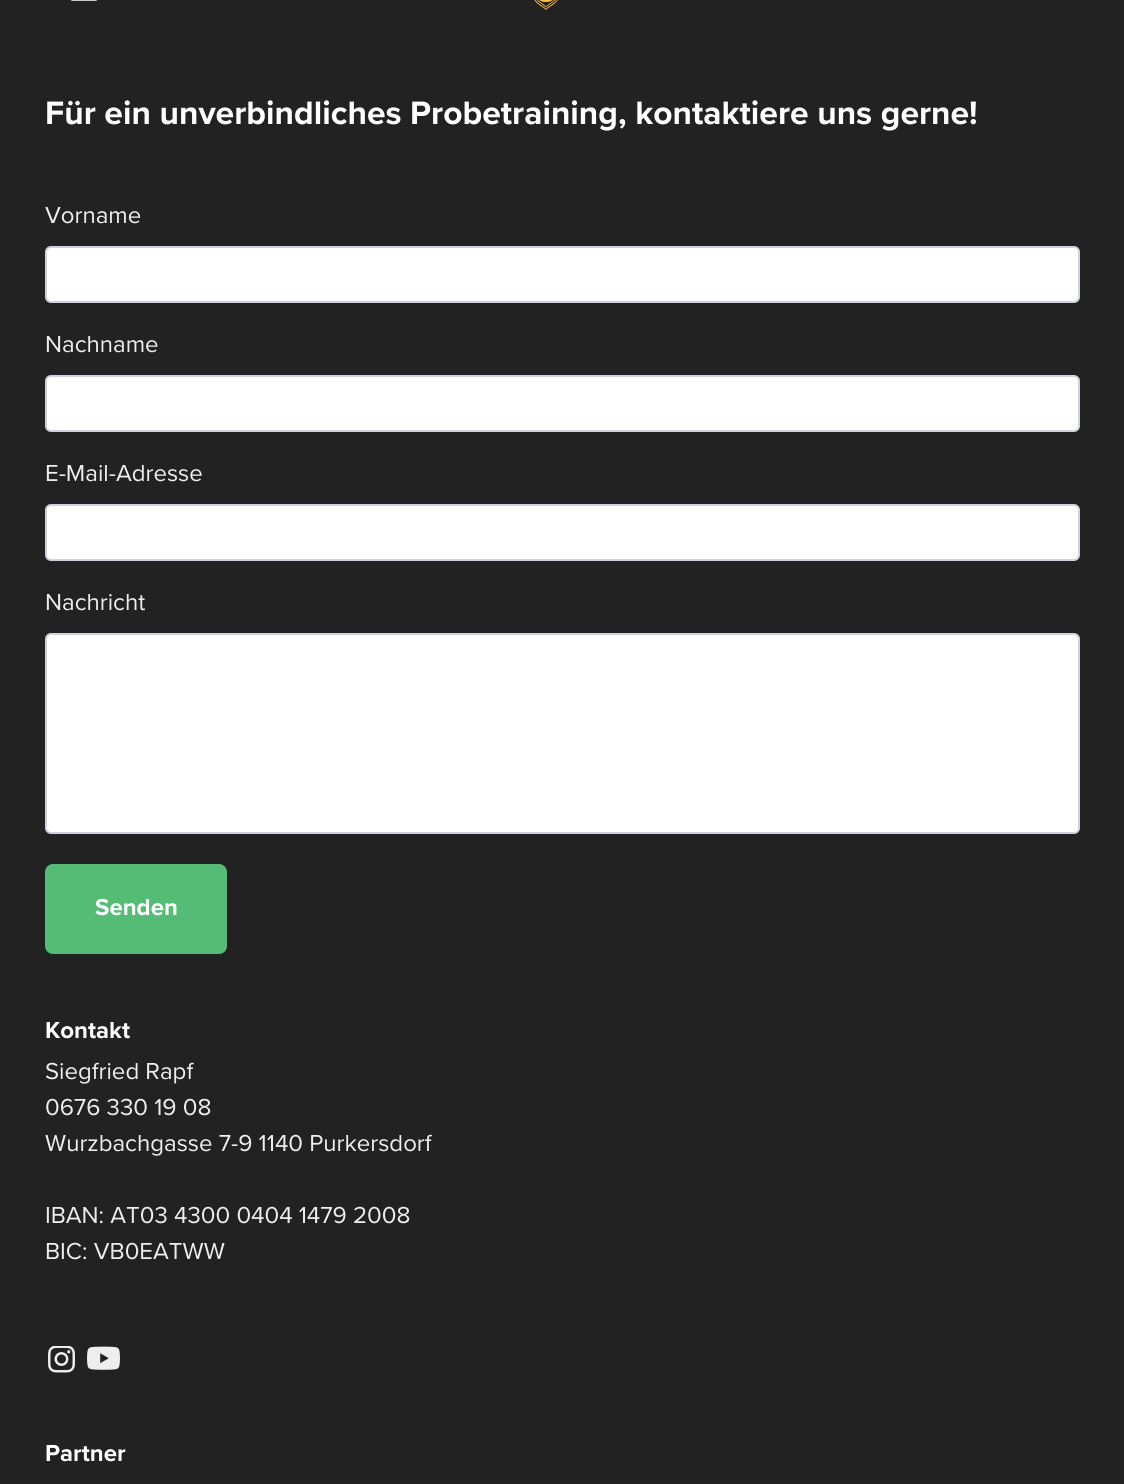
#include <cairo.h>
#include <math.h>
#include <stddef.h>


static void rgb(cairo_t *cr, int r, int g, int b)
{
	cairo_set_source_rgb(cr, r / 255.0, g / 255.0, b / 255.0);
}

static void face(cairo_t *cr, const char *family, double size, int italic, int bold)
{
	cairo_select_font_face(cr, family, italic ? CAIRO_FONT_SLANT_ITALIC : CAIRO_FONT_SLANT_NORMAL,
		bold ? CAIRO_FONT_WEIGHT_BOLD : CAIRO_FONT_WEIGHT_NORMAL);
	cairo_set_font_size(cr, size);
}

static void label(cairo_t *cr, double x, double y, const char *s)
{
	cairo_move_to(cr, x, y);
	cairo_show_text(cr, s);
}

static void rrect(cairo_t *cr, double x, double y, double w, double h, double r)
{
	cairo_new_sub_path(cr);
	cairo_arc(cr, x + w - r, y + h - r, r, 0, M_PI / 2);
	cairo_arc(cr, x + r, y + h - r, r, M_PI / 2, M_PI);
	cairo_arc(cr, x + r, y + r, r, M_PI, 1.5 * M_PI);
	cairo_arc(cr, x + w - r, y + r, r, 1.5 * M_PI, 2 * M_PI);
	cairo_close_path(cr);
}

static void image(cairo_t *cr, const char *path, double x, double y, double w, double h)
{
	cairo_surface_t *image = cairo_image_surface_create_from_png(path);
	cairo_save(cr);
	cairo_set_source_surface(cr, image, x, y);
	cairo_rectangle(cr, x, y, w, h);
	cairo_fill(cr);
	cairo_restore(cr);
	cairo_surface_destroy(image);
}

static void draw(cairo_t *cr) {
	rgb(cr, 34, 34, 34);
	cairo_paint(cr);
	image(cr, "image0.png", 71, 0, 26, 1);
	image(cr, "image1.png", 534, 0, 24, 10);
	face(cr, "Proxima Nova", 33.6, 0, 1);
	rgb(cr, 255, 255, 255);
	label(cr, 45, 124, "Für ein unverbindliches Probetraining, kontaktiere uns gerne!");
	face(cr, "Proxima Nova", 24, 0, 0);
	rgb(cr, 238, 238, 238);
	label(cr, 45, 223, "Vorname");
	rgb(cr, 255, 255, 255);
	rrect(cr, 46, 247, 1033, 55, 5);
	cairo_fill_preserve(cr);
	rgb(cr, 206, 212, 218);
	cairo_stroke(cr);
	rgb(cr, 238, 238, 238);
	label(cr, 45, 352, "Nachname");
	rgb(cr, 255, 255, 255);
	rrect(cr, 46, 376, 1033, 55, 5);
	cairo_fill_preserve(cr);
	rgb(cr, 206, 212, 218);
	cairo_stroke(cr);
	rgb(cr, 238, 238, 238);
	label(cr, 45, 481, "E-Mail-Adresse");
	rgb(cr, 255, 255, 255);
	rrect(cr, 46, 505, 1033, 55, 5);
	cairo_fill_preserve(cr);
	rgb(cr, 206, 212, 218);
	cairo_stroke(cr);
	rgb(cr, 238, 238, 238);
	label(cr, 45, 610, "Nachricht");
	rgb(cr, 255, 255, 255);
	rrect(cr, 46, 634, 1033, 199, 5);
	cairo_fill_preserve(cr);
	rgb(cr, 206, 212, 218);
	cairo_stroke(cr);
	rgb(cr, 85, 188, 117);
	rrect(cr, 46, 865, 180, 88, 7);
	cairo_fill_preserve(cr);
	cairo_stroke(cr);
	face(cr, "Proxima Nova", 24, 0, 1);
	rgb(cr, 255, 255, 255);
	label(cr, 95, 915, "Senden");
	label(cr, 45, 1038, "Kontakt");
	face(cr, "Proxima Nova", 24, 0, 0);
	rgb(cr, 238, 238, 238);
	label(cr, 45, 1079, "Siegfried Rapf");
	label(cr, 45, 1115, "0676 330 19 08");
	label(cr, 45, 1151, "Wurzbachgasse 7-9 1140 Purkersdorf");
	label(cr, 45, 1223, "IBAN: AT03 4300 0404 1479 2008");
	label(cr, 45, 1259, "BIC: VB0EATWW");
	image(cr, "image2.png", 48, 1346, 27, 27);
	image(cr, "image3.png", 87, 1346, 33, 24);
	face(cr, "Proxima Nova", 24, 0, 1);
	rgb(cr, 255, 255, 255);
	label(cr, 45, 1461, "Partner");
}

int main(void) {
	cairo_surface_t *surface = cairo_image_surface_create(CAIRO_FORMAT_RGB24, 1124, 1484);
	cairo_t *cr = cairo_create(surface);
	cairo_font_options_t *options = cairo_font_options_create();
	cairo_font_options_set_hint_metrics(options, CAIRO_HINT_METRICS_OFF);
	cairo_font_options_set_hint_style(options, CAIRO_HINT_STYLE_NONE);
	cairo_set_font_options(cr, options);
	cairo_set_miter_limit(cr, 4);
	draw(cr);
	cairo_surface_write_to_png(surface, "render.png");
	cairo_font_options_destroy(options);
	cairo_destroy(cr);
	cairo_surface_destroy(surface);
	return 0;
}
